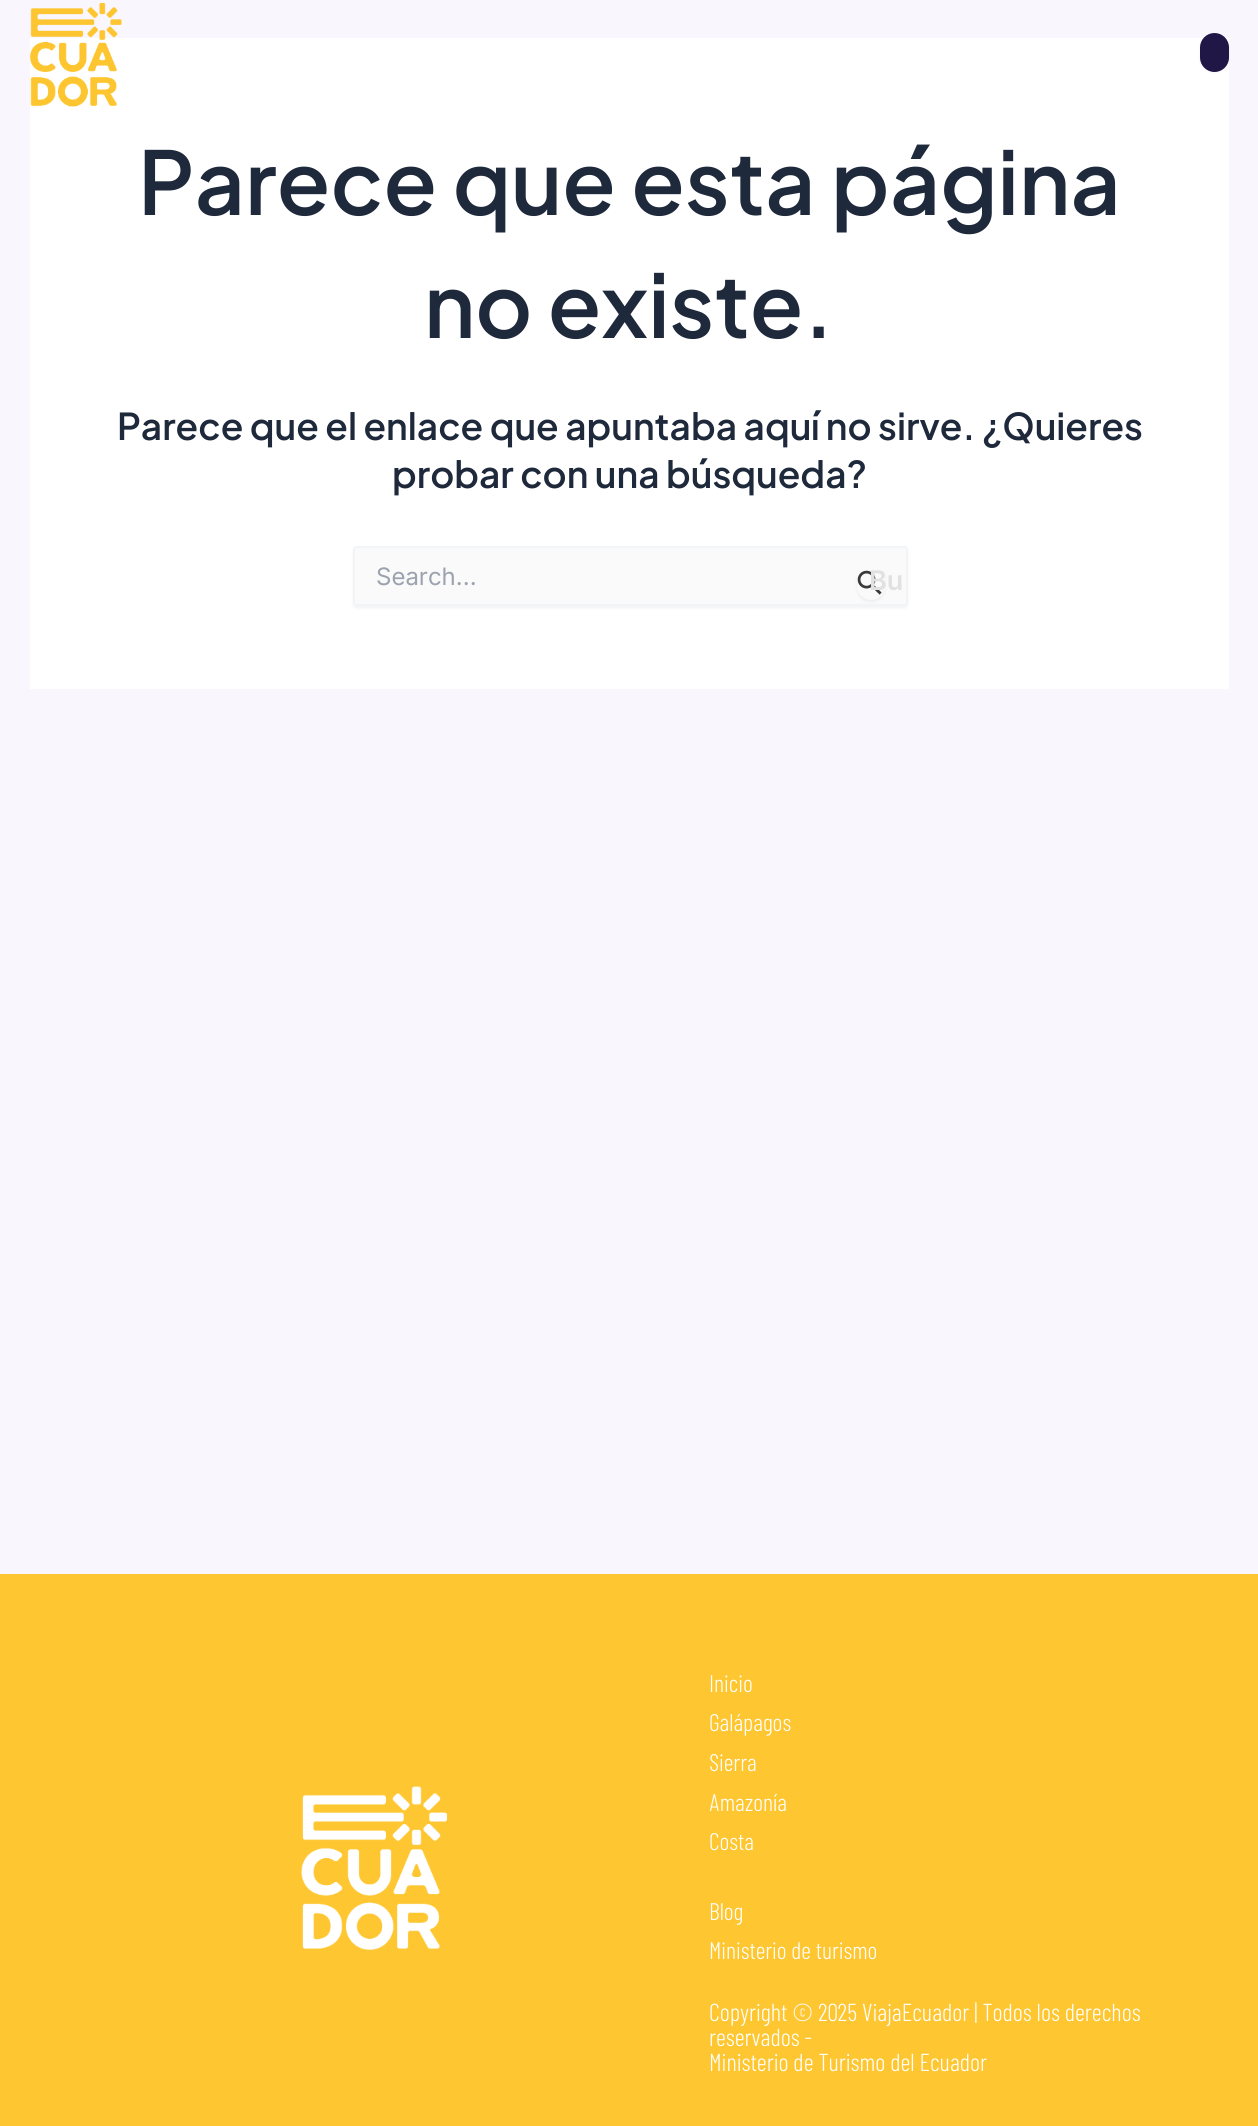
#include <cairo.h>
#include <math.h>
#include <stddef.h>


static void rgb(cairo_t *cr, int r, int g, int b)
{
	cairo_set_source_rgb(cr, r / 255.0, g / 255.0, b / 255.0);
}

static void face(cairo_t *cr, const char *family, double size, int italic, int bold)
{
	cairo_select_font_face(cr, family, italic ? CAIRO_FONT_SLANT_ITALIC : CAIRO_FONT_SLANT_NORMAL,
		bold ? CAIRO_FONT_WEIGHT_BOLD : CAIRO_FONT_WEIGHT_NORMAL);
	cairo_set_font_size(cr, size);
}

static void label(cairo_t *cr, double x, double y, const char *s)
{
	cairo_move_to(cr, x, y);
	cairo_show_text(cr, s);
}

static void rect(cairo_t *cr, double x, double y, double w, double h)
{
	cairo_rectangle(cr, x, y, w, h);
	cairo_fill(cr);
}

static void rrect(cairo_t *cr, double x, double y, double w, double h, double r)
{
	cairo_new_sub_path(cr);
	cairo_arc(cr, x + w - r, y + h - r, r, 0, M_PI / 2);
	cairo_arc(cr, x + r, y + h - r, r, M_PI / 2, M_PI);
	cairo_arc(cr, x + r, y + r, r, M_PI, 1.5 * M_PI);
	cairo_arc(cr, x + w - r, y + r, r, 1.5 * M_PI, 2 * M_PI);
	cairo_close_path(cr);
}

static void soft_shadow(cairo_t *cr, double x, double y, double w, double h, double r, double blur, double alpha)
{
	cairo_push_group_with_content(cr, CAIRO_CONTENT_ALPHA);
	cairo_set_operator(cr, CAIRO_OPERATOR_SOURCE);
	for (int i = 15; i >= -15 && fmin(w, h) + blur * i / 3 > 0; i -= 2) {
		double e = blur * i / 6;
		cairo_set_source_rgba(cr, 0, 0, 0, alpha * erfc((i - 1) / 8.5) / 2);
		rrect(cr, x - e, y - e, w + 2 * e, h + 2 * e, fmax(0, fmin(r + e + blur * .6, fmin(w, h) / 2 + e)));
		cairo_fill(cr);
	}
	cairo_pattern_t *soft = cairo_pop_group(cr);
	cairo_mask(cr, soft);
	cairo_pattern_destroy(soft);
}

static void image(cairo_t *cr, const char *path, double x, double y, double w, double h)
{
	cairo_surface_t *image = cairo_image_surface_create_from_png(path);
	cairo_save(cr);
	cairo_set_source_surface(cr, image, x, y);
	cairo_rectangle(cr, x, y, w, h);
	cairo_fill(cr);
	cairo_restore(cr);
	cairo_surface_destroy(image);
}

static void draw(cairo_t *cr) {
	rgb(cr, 249, 246, 254);
	cairo_paint(cr);
	rgb(cr, 255, 255, 255);
	rect(cr, 30, 38, 1199, 651);
	image(cr, "image0.png", 30, 3, 92, 104);
	rgb(cr, 0, 0, 0);
	soft_shadow(cr, 1200, 36, 29, 36, 14.5, 1.5, 0.05);
	rgb(cr, 33, 23, 71);
	rrect(cr, 1200, 33, 29, 39, 14.5);
	cairo_fill(cr);
	face(cr, "Plus Jakarta Sans SemiBold", 87.5, 0, 0);
	rgb(cr, 30, 41, 59);
	label(cr, 138, 215, "Parece que esta página");
	label(cr, 424, 338, "no existe.");
	face(cr, "Plus Jakarta Sans SemiBold", 36.95, 0, 0);
	label(cr, 117, 440, "Parece que el enlace que apuntaba aquí no sirve. ¿Quieres");
	label(cr, 392, 488, "probar con una búsqueda?");
	rgb(cr, 0, 0, 0);
	soft_shadow(cr, 353, 548, 555, 60, 3, 1.5, 0.05);
	rgb(cr, 250, 250, 250);
	rrect(cr, 354, 547, 553, 58, 2);
	cairo_fill_preserve(cr);
	rgb(cr, 242, 245, 247);
	cairo_stroke(cr);
	face(cr, "Inter", 24, 0, 0);
	rgb(cr, 156, 163, 175);
	label(cr, 376, 585, "Search...");
	cairo_save(cr);
	cairo_set_fill_rule(cr, CAIRO_FILL_RULE_EVEN_ODD);
	cairo_new_path(cr);
	cairo_move_to(cr, 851, 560);
	cairo_line_to(cr, 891, 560);
	cairo_line_to(cr, 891, 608);
	cairo_line_to(cr, 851, 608);
	cairo_close_path(cr);
	cairo_move_to(cr, 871, 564);
	cairo_curve_to(cr, 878.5, 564, 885, 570.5, 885, 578);
	cairo_line_to(cr, 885, 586);
	cairo_curve_to(cr, 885, 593.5, 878.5, 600, 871, 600);
	cairo_curve_to(cr, 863.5, 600, 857, 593.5, 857, 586);
	cairo_line_to(cr, 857, 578);
	cairo_curve_to(cr, 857, 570.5, 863.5, 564, 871, 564);
	cairo_close_path(cr);
	cairo_clip(cr);
	rgb(cr, 0, 0, 0);
	soft_shadow(cr, 857, 566, 28, 36, 14, 1.5, 0.05);
	cairo_restore(cr);
	image(cr, "image1.png", 857, 570, 25, 25);
	face(cr, "Inter SemiBold", 27, 0, 0);
	rgb(cr, 225, 225, 225);
	label(cr, 869, 590, "Bu");
	rgb(cr, 254, 198, 49);
	rect(cr, 0, 1574, 1258, 552);
	image(cr, "image2.png", 301, 1786, 146, 164);
	face(cr, "Barlow Condensed Light", 24, 0, 0);
	rgb(cr, 255, 255, 255);
	label(cr, 709, 1692, "Inicio");
	label(cr, 709, 1731, "Galápagos");
	label(cr, 709, 1771, "Sierra");
	label(cr, 709, 1811, "Amazonía");
	label(cr, 709, 1850, "Costa");
	label(cr, 709, 1920, "Blog");
	label(cr, 709, 1959, "Ministerio de turismo");
	face(cr, "Barlow Condensed Light", 24.6, 0, 0);
	label(cr, 709, 2021, "Copyright © 2025 ViajaEcuador | Todos los derechos");
	label(cr, 709, 2046, "reservados -");
	label(cr, 709, 2071, "Ministerio de Turismo del Ecuador");
}

int main(void) {
	cairo_surface_t *surface = cairo_image_surface_create(CAIRO_FORMAT_RGB24, 1258, 2126);
	cairo_t *cr = cairo_create(surface);
	cairo_font_options_t *options = cairo_font_options_create();
	cairo_font_options_set_hint_metrics(options, CAIRO_HINT_METRICS_OFF);
	cairo_font_options_set_hint_style(options, CAIRO_HINT_STYLE_NONE);
	cairo_set_font_options(cr, options);
	cairo_set_miter_limit(cr, 4);
	draw(cr);
	cairo_surface_write_to_png(surface, "render.png");
	cairo_font_options_destroy(options);
	cairo_destroy(cr);
	cairo_surface_destroy(surface);
	return 0;
}
